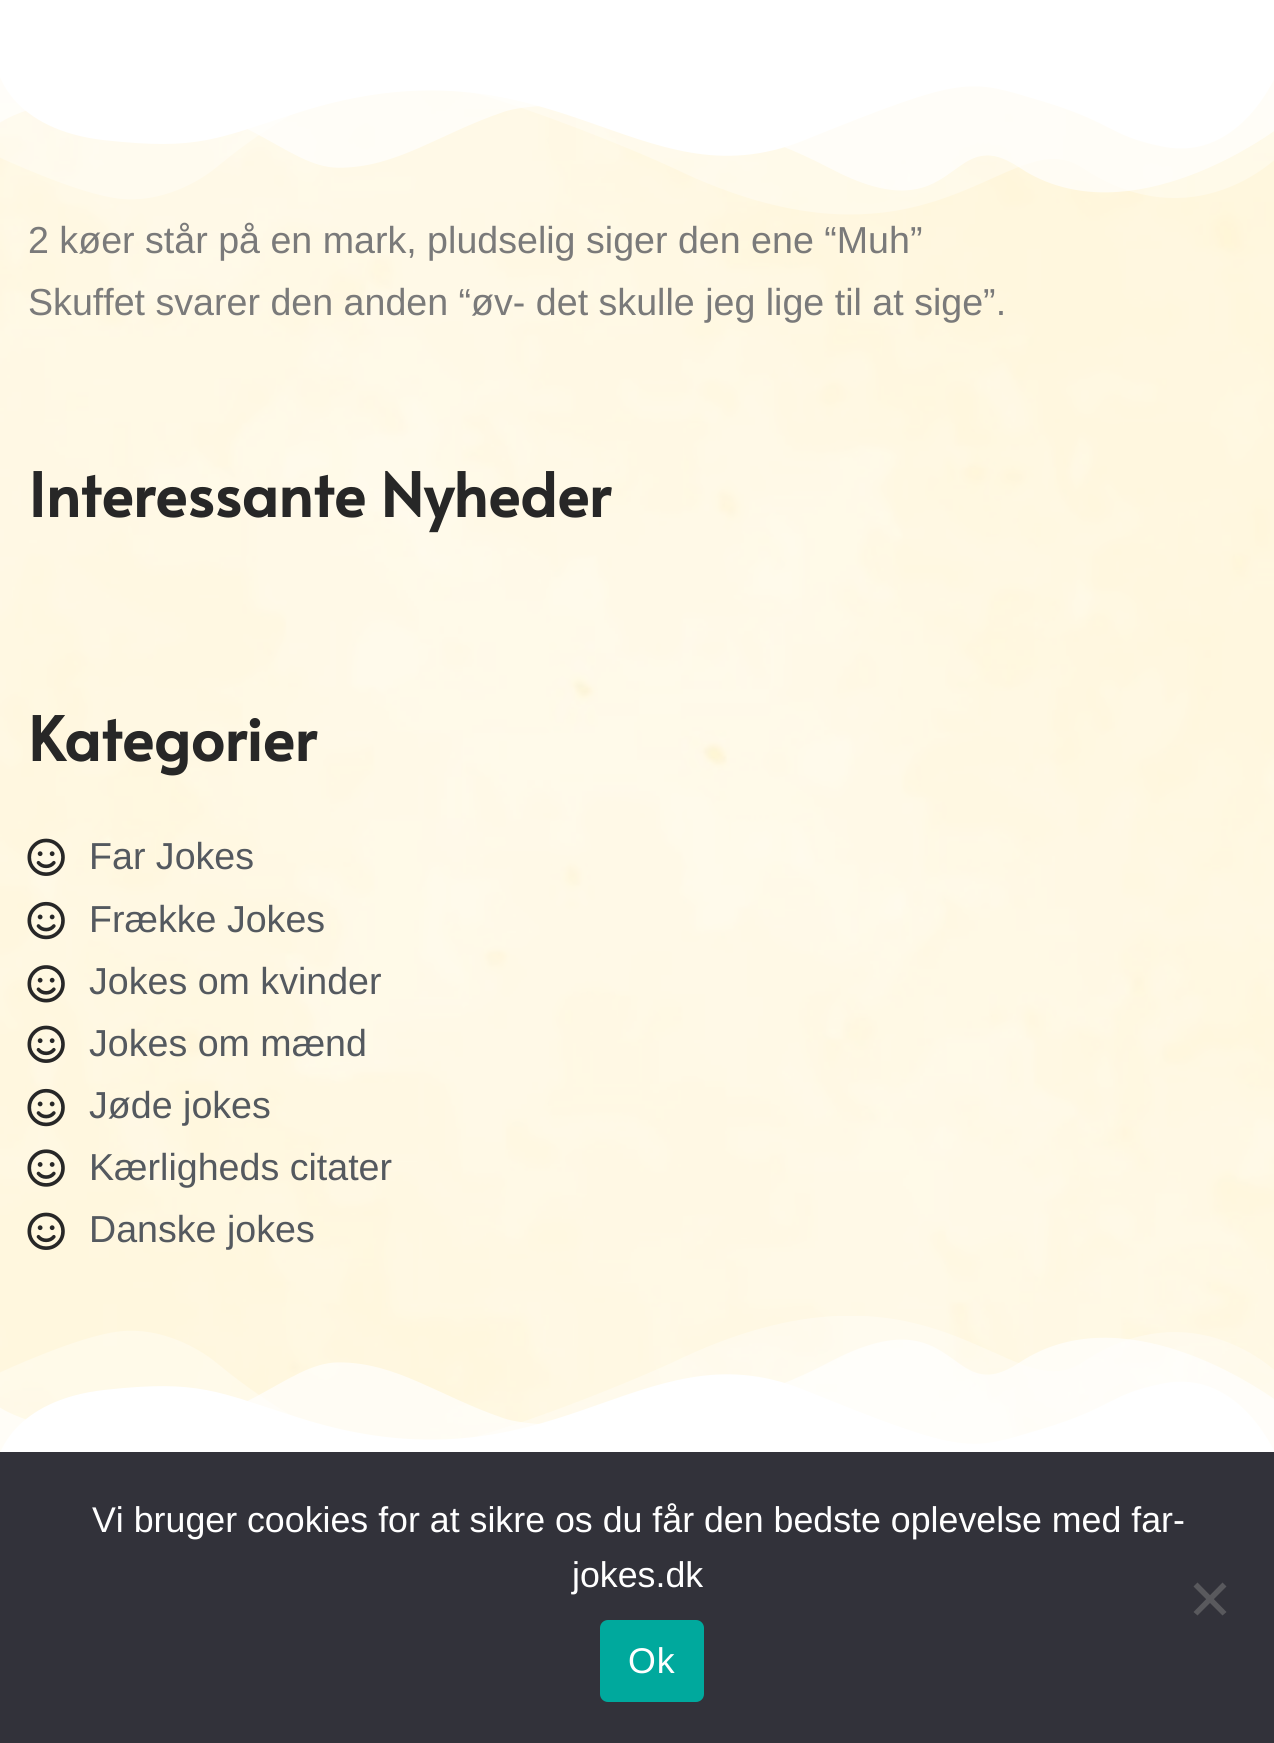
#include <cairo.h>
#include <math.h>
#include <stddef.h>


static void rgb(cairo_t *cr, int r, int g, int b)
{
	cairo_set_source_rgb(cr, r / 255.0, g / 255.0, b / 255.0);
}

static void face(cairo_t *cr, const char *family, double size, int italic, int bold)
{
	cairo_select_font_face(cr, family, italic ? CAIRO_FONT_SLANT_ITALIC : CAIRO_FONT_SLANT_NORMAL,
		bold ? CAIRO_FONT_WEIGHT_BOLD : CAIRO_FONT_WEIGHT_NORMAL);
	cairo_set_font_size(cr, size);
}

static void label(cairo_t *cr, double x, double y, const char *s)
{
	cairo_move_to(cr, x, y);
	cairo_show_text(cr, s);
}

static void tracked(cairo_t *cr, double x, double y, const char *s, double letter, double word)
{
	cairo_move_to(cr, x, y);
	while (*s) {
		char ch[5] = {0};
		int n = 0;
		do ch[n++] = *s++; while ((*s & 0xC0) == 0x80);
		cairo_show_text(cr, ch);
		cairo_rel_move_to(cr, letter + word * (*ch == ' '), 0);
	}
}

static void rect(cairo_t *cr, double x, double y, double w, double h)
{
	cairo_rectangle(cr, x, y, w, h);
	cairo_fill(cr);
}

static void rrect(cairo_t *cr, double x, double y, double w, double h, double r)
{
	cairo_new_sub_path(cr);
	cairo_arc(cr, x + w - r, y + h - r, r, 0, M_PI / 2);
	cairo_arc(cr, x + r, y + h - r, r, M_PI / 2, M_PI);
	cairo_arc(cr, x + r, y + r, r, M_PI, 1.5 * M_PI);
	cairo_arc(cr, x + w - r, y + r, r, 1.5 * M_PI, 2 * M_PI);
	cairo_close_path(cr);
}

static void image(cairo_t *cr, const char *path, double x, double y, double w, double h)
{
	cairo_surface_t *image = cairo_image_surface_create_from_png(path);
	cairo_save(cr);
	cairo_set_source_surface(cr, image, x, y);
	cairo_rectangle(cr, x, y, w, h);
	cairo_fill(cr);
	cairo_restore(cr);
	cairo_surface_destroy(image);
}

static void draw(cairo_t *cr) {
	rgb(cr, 255, 255, 255);
	cairo_paint(cr);
	image(cr, "image1.png", 0, 77, 1274, 1375);
	image(cr, "image0.png", 0, 74, 1274, 141);
	face(cr, "Liberation Sans", 37.6, 0, 0);
	rgb(cr, 122, 122, 122);
	label(cr, 28, 253, "2 køer står på en mark, pludselig siger den ene “Muh”");
	label(cr, 28, 315, "Skuffet svarer den anden “øv- det skulle jeg lige til at sige”.");
	face(cr, "Alata", 60.25, 0, 1);
	rgb(cr, 39, 39, 39);
	label(cr, 28, 517, "Interessante Nyheder");
	label(cr, 28, 761, "Kategorier");
	image(cr, "image2.png", 27, 838, 38, 38);
	face(cr, "Liberation Sans", 37.6, 0, 0);
	rgb(cr, 84, 89, 95);
	label(cr, 89, 869, "Far Jokes");
	image(cr, "image3.png", 27, 901, 38, 39);
	label(cr, 89, 932, "Frække Jokes");
	image(cr, "image4.png", 27, 965, 38, 38);
	label(cr, 89, 994, "Jokes om kvinder");
	image(cr, "image5.png", 27, 1025, 38, 38);
	label(cr, 89, 1056, "Jokes om mænd");
	image(cr, "image6.png", 27, 1088, 38, 39);
	label(cr, 89, 1118, "Jøde jokes");
	image(cr, "image7.png", 27, 1149, 38, 38);
	label(cr, 89, 1180, "Kærligheds citater");
	image(cr, "image8.png", 27, 1212, 38, 38);
	label(cr, 89, 1242, "Danske jokes");
	image(cr, "image9.png", 0, 1316, 1274, 136);
	rgb(cr, 50, 50, 58);
	rect(cr, 0, 1452, 1274, 291);
	face(cr, "Liberation Sans", 35.75, 0, 0);
	rgb(cr, 255, 255, 255);
	label(cr, 92, 1532, "Vi bruger cookies for at sikre os du får den bedste oplevelse med far-");
	label(cr, 572, 1587, "jokes.dk");
	rgb(cr, 89, 89, 93);
	cairo_new_path(cr);
	cairo_move_to(cr, 1222.5, 1582.5);
	cairo_line_to(cr, 1226.5, 1586.5);
	cairo_line_to(cr, 1197.5, 1615.5);
	cairo_line_to(cr, 1193.5, 1612);
	cairo_close_path(cr);
	cairo_fill(cr);
	cairo_new_path(cr);
	cairo_move_to(cr, 1193.5, 1586.5);
	cairo_line_to(cr, 1197.5, 1582.5);
	cairo_line_to(cr, 1226.5, 1612);
	cairo_line_to(cr, 1222.5, 1615.5);
	cairo_close_path(cr);
	cairo_fill(cr);
	rgb(cr, 0, 169, 157);
	rrect(cr, 600, 1620, 104, 82, 8);
	cairo_fill(cr);
	rgb(cr, 255, 255, 255);
	tracked(cr, 628, 1673, "Ok", 1, 0);
}

int main(void) {
	cairo_surface_t *surface = cairo_image_surface_create(CAIRO_FORMAT_RGB24, 1274, 1743);
	cairo_t *cr = cairo_create(surface);
	cairo_font_options_t *options = cairo_font_options_create();
	cairo_font_options_set_hint_metrics(options, CAIRO_HINT_METRICS_OFF);
	cairo_font_options_set_hint_style(options, CAIRO_HINT_STYLE_NONE);
	cairo_set_font_options(cr, options);
	cairo_set_miter_limit(cr, 4);
	draw(cr);
	cairo_surface_write_to_png(surface, "render.png");
	cairo_font_options_destroy(options);
	cairo_destroy(cr);
	cairo_surface_destroy(surface);
	return 0;
}
